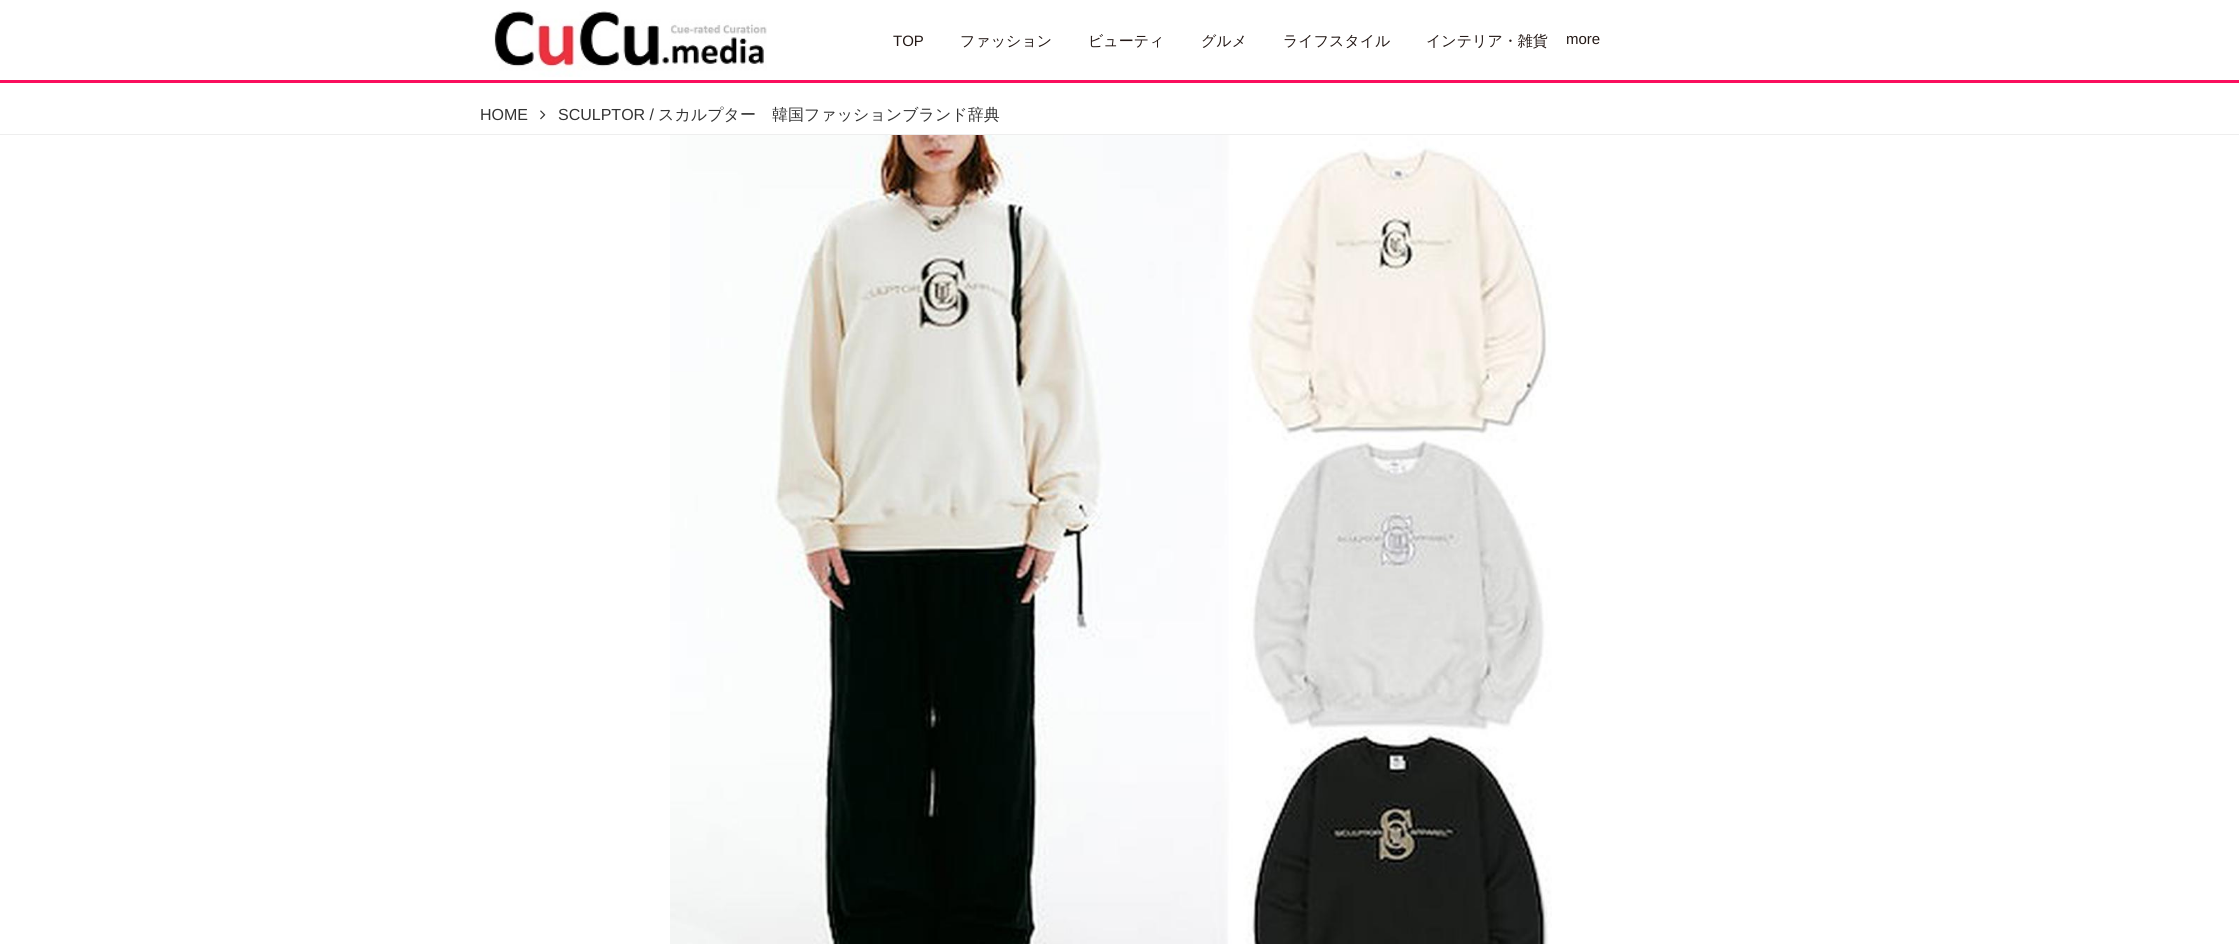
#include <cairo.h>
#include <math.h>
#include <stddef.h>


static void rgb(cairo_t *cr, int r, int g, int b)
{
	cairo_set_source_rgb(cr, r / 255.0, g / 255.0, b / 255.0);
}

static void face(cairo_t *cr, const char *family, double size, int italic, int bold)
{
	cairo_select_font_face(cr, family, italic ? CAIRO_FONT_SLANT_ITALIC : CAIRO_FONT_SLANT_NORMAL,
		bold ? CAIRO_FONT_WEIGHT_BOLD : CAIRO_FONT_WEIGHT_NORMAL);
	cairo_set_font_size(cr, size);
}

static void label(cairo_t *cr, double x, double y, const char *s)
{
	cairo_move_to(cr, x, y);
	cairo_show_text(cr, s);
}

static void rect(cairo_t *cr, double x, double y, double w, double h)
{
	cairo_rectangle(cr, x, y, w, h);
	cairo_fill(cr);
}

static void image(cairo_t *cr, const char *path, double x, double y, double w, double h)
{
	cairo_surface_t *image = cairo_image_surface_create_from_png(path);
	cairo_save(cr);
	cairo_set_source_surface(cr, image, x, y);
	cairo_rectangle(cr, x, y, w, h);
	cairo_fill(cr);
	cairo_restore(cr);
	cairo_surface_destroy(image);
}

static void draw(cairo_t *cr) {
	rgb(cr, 255, 255, 255);
	cairo_paint(cr);
	image(cr, "image0.png", 494, 11, 273, 66);
	face(cr, "Liberation Sans", 15, 0, 0);
	rgb(cr, 35, 24, 21);
	label(cr, 893, 46, "TOP");
	face(cr, "WenQuanYi Zen Hei Medium", 15, 0, 0);
	label(cr, 960, 46, "ファッション");
	label(cr, 1088, 46, "ビューティ");
	label(cr, 1201, 46, "グルメ");
	label(cr, 1283, 46, "ライフスタイル");
	label(cr, 1426, 46, "インテリア・雑貨");
	face(cr, "Liberation Sans", 15, 0, 0);
	label(cr, 1566, 44, "more");
	rgb(cr, 250, 14, 93);
	rect(cr, 0, 80, 2239, 3);
	face(cr, "Liberation Sans", 16, 0, 0);
	rgb(cr, 51, 51, 51);
	label(cr, 480, 120, "HOME");
	image(cr, "image1.png", 540, 110, 6, 10);
	label(cr, 558, 120, "SCULPTOR /");
	face(cr, "WenQuanYi Zen Hei Medium", 16, 0, 0);
	label(cr, 658, 120, "スカルプター　韓国ファッションブランド辞典");
	rgb(cr, 238, 238, 238);
	rect(cr, 0, 134, 2239, 1);
	image(cr, "image2.png", 670, 135, 882, 809);
}

int main(void) {
	cairo_surface_t *surface = cairo_image_surface_create(CAIRO_FORMAT_RGB24, 2239, 944);
	cairo_t *cr = cairo_create(surface);
	cairo_font_options_t *options = cairo_font_options_create();
	cairo_font_options_set_hint_metrics(options, CAIRO_HINT_METRICS_OFF);
	cairo_font_options_set_hint_style(options, CAIRO_HINT_STYLE_NONE);
	cairo_set_font_options(cr, options);
	cairo_set_miter_limit(cr, 4);
	draw(cr);
	cairo_surface_write_to_png(surface, "render.png");
	cairo_font_options_destroy(options);
	cairo_destroy(cr);
	cairo_surface_destroy(surface);
	return 0;
}
